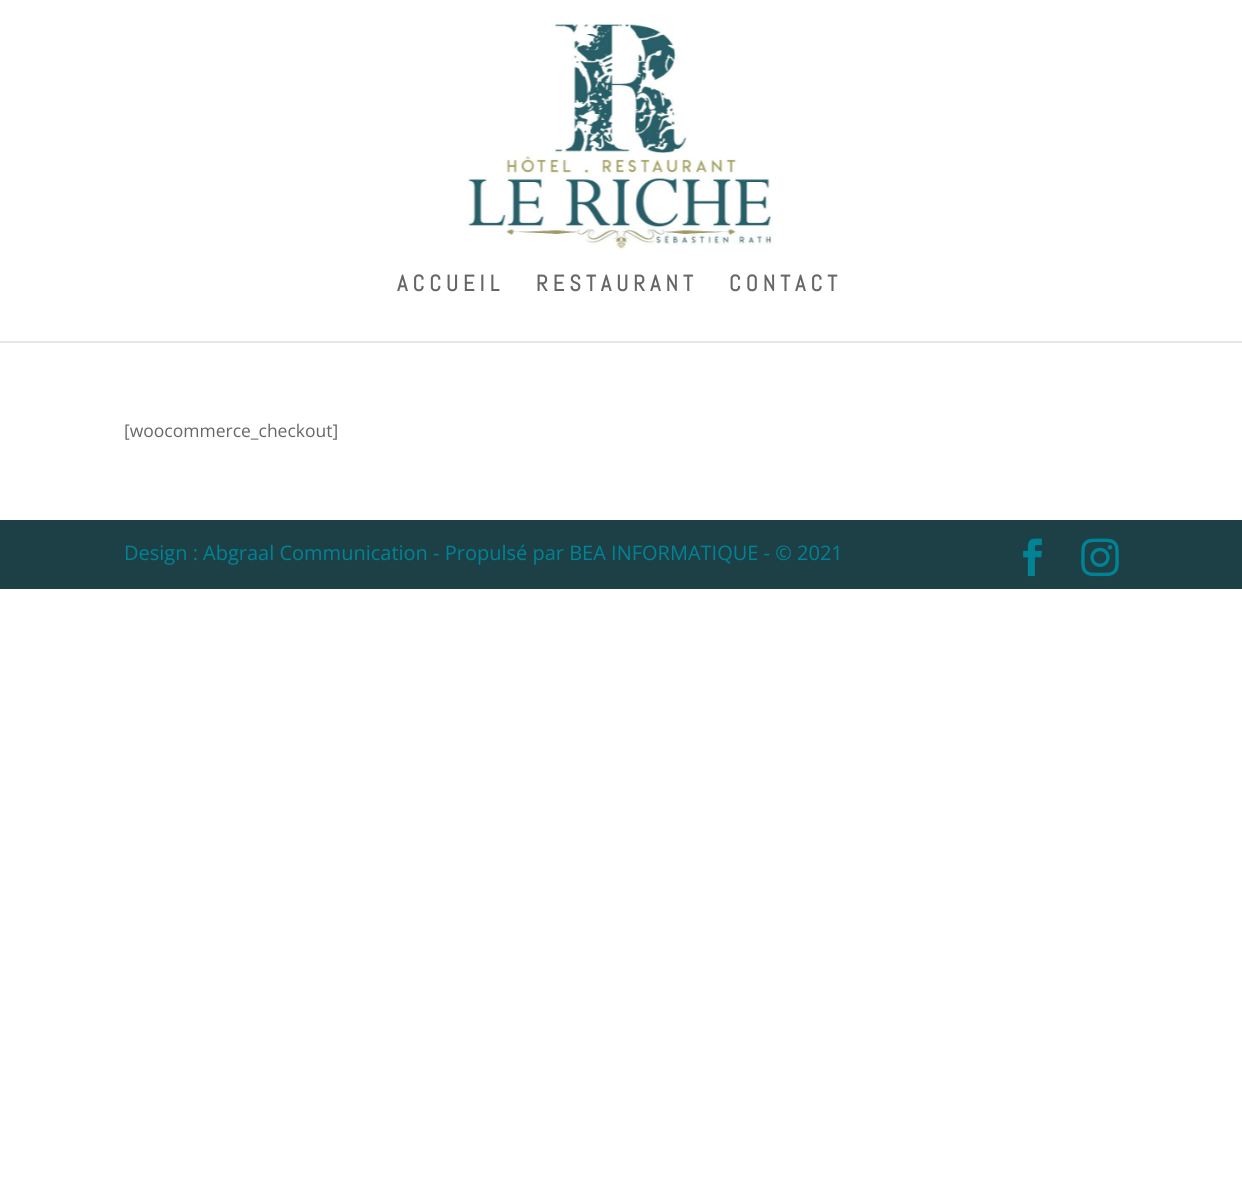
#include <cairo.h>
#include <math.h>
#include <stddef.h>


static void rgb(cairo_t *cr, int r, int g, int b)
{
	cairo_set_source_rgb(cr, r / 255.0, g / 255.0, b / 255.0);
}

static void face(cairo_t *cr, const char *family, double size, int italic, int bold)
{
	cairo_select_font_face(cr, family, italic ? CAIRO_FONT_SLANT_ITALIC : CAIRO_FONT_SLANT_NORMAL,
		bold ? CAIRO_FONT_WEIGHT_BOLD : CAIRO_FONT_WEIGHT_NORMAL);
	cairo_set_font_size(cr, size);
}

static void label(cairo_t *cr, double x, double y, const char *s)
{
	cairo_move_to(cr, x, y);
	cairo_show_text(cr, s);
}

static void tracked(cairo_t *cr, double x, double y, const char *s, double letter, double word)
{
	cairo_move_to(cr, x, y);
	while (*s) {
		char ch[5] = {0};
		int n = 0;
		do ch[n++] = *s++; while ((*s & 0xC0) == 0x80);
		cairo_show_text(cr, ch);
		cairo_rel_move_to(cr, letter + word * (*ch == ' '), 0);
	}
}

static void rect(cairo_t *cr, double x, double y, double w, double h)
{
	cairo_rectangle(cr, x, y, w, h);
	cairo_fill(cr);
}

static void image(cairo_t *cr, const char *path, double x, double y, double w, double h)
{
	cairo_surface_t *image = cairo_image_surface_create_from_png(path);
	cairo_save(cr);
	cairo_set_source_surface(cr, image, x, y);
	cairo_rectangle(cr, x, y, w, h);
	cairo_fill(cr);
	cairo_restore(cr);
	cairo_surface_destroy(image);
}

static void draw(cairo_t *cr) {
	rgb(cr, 255, 255, 255);
	cairo_paint(cr);
	rgb(cr, 230, 230, 230);
	cairo_new_path(cr);
	cairo_move_to(cr, 0, 341);
	cairo_line_to(cr, 0, 343);
	cairo_line_to(cr, 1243, 343);
	cairo_line_to(cr, 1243, 1);
	cairo_line_to(cr, 1242, 1);
	cairo_line_to(cr, 1242, 341);
	cairo_close_path(cr);
	cairo_fill(cr);
	image(cr, "image0.png", 467, 22, 307, 229);
	face(cr, "Abel", 22.5, 0, 1);
	rgb(cr, 102, 102, 102);
	tracked(cr, 397, 291, "ACCUEIL", 5, 0);
	tracked(cr, 536, 291, "RESTAURANT", 5, 0);
	tracked(cr, 729, 291, "CONTACT", 5, 0);
	face(cr, "Open Sans", 17.5, 0, 0);
	label(cr, 124, 437, "[woocommerce_checkout]");
	rgb(cr, 29, 64, 71);
	rect(cr, 0, 520, 1242, 69);
	face(cr, "Open Sans", 20, 0, 0);
	rgb(cr, 0, 131, 148);
	label(cr, 124, 560, "Design : Abgraal Communication - Propulsé par BEA INFORMATIQUE - © 2021");
	image(cr, "image1.png", 1023, 538, 19, 39);
	image(cr, "image2.png", 1081, 538, 38, 39);
}

int main(void) {
	cairo_surface_t *surface = cairo_image_surface_create(CAIRO_FORMAT_RGB24, 1242, 1183);
	cairo_t *cr = cairo_create(surface);
	cairo_font_options_t *options = cairo_font_options_create();
	cairo_font_options_set_hint_metrics(options, CAIRO_HINT_METRICS_OFF);
	cairo_font_options_set_hint_style(options, CAIRO_HINT_STYLE_NONE);
	cairo_set_font_options(cr, options);
	cairo_set_miter_limit(cr, 4);
	draw(cr);
	cairo_surface_write_to_png(surface, "render.png");
	cairo_font_options_destroy(options);
	cairo_destroy(cr);
	cairo_surface_destroy(surface);
	return 0;
}
